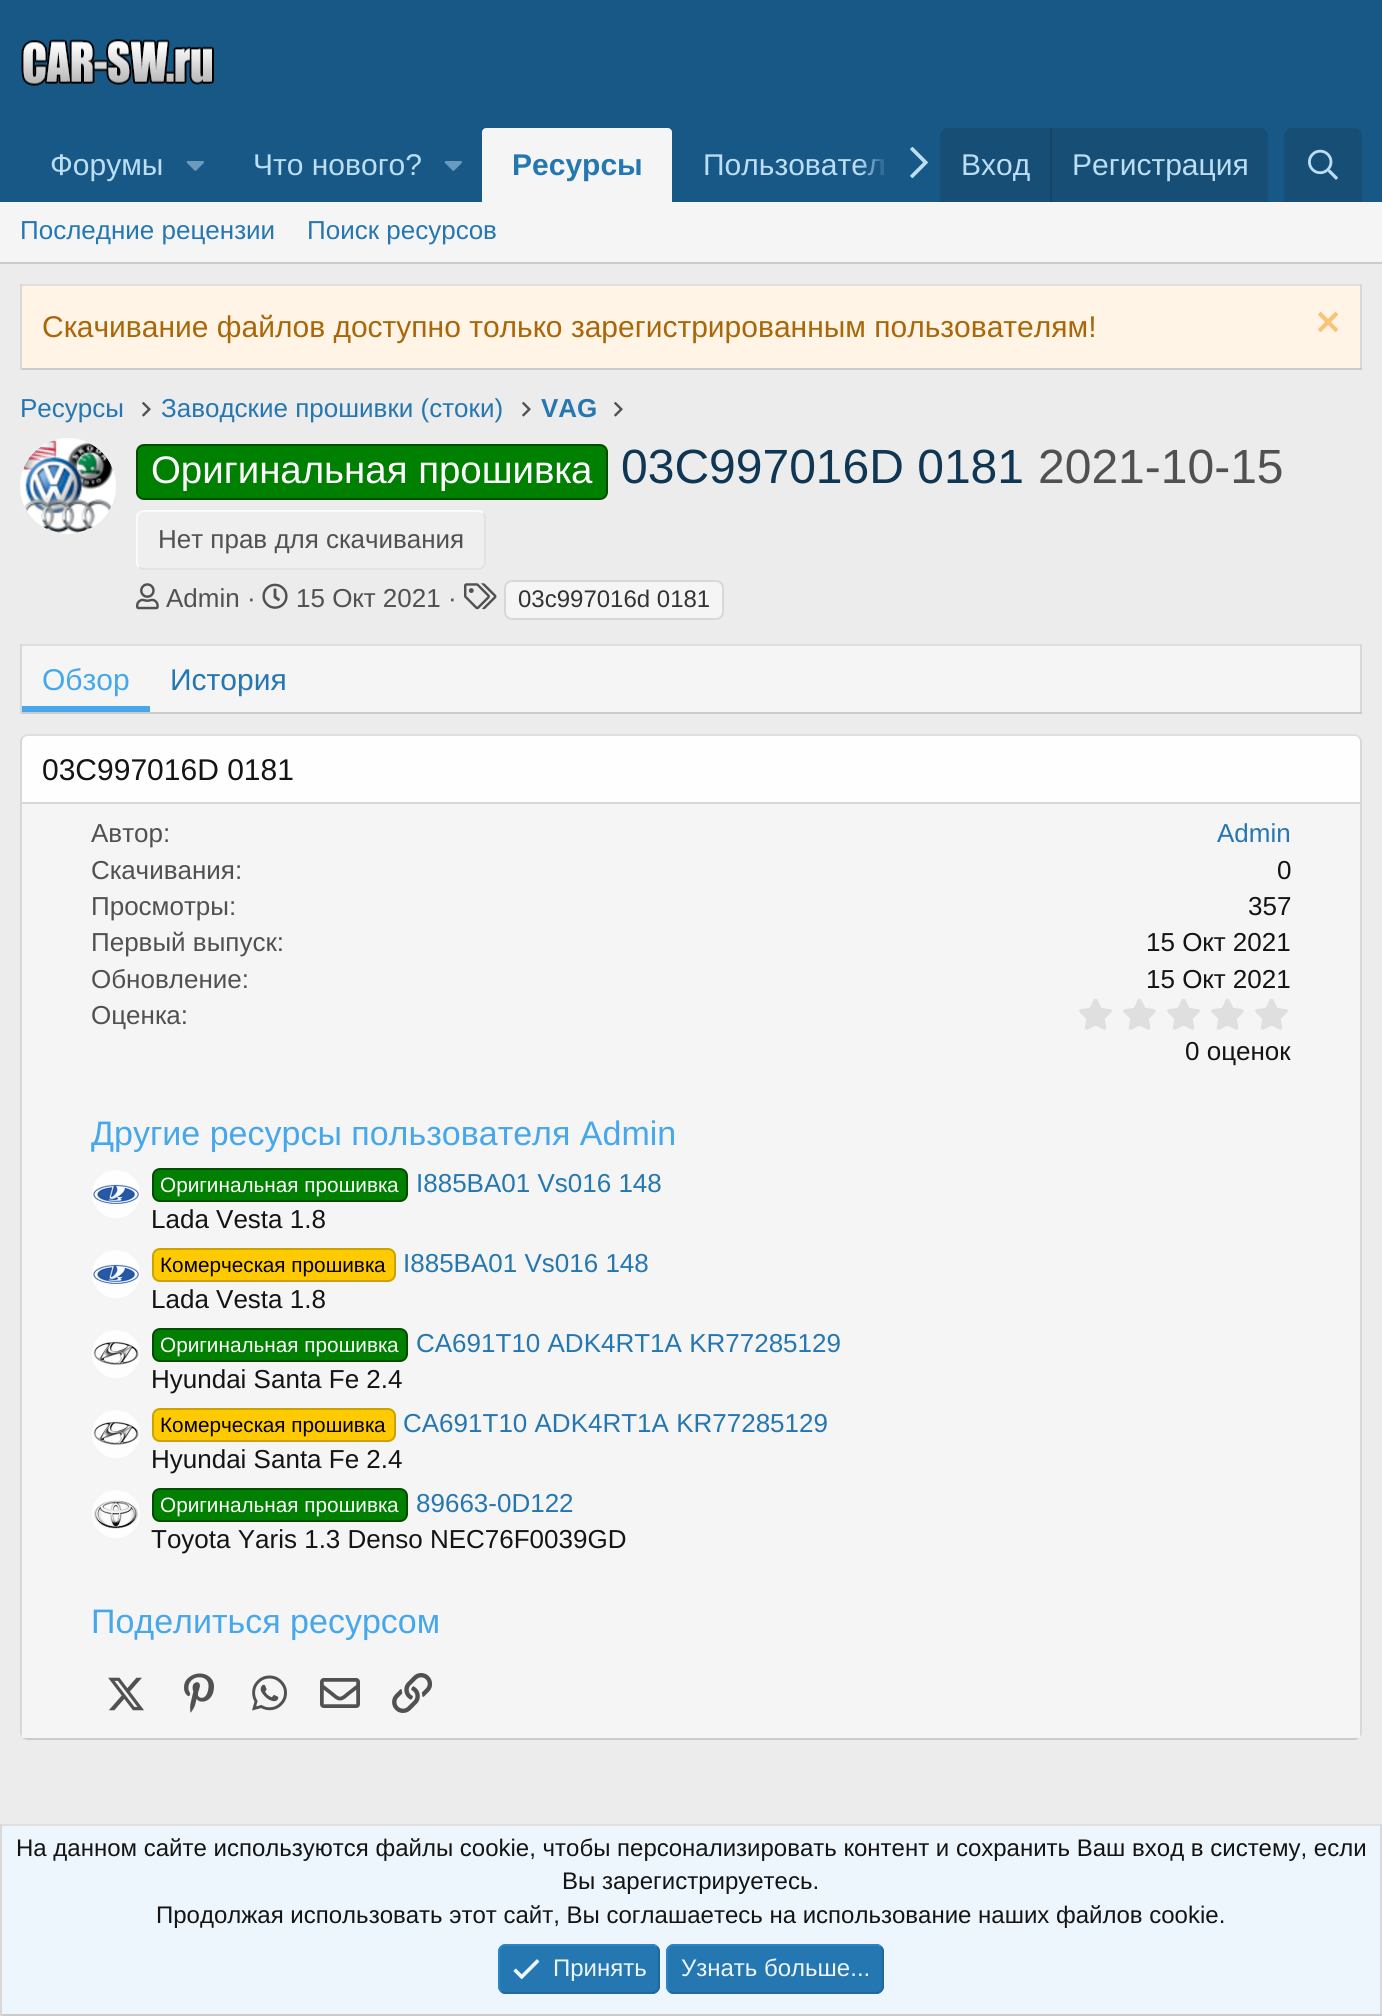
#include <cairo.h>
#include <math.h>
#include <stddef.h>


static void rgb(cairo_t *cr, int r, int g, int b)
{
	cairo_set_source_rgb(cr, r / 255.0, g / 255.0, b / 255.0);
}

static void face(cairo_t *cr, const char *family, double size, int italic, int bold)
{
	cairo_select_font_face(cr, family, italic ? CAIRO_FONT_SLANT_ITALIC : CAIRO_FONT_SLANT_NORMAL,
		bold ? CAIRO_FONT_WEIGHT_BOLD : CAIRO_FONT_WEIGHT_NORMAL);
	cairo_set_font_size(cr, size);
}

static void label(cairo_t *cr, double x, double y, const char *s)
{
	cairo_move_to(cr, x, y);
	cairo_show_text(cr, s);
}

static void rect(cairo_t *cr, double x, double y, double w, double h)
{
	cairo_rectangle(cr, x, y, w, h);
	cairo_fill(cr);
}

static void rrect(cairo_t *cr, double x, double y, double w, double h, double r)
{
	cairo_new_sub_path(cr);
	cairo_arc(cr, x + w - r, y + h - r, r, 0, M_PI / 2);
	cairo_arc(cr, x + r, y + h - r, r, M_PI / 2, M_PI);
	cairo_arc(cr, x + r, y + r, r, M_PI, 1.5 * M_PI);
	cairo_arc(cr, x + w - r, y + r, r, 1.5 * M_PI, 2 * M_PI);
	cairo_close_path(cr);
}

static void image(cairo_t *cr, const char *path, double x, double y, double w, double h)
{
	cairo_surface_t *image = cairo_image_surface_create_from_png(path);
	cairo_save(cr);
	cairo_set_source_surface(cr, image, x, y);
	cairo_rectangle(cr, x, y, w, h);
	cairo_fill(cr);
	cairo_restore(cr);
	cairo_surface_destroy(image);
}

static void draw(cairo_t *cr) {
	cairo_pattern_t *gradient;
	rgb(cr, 236, 236, 236);
	cairo_paint(cr);
	rgb(cr, 24, 88, 134);
	rect(cr, 0, 0, 1382, 202);
	image(cr, "image0.png", 21, 39, 193, 47);
	face(cr, "Liberation Sans", 30, 0, 0);
	rgb(cr, 188, 222, 245);
	label(cr, 50, 175, "Форумы");
	image(cr, "image1.png", 186, 161, 18, 10);
	label(cr, 253, 175, "Что нового?");
	image(cr, "image1.png", 444, 161, 18, 10);
	rgb(cr, 245, 245, 245);
	cairo_new_path(cr);
	cairo_move_to(cr, 486, 128);
	cairo_line_to(cr, 668, 128);
	cairo_curve_to(cr, 670, 128, 672, 130, 672, 132);
	cairo_line_to(cr, 672, 202);
	cairo_line_to(cr, 482, 202);
	cairo_line_to(cr, 482, 132);
	cairo_curve_to(cr, 482, 130, 484, 128, 486, 128);
	cairo_close_path(cr);
	cairo_fill(cr);
	face(cr, "Liberation Sans", 30, 0, 1);
	rgb(cr, 37, 119, 177);
	label(cr, 512, 175, "Ресурсы");
	face(cr, "Liberation Sans", 30, 0, 0);
	rgb(cr, 188, 222, 245);
	label(cr, 703, 175, "Пользовател");
	gradient = cairo_pattern_create_linear(860, 165, 940, 165);
	cairo_pattern_add_color_stop_rgba(gradient, 0, 0.094, 0.345, 0.525, 0);
	cairo_pattern_add_color_stop_rgba(gradient, 0.33, 0.094, 0.345, 0.525, 1);
	cairo_set_source(cr, gradient);
	cairo_pattern_destroy(gradient);
	rect(cr, 861, 159, 22, 17);
	image(cr, "image2.png", 910, 147, 18, 31);
	rgb(cr, 23, 78, 117);
	cairo_new_path(cr);
	cairo_move_to(cr, 948, 128);
	cairo_line_to(cr, 1260, 128);
	cairo_curve_to(cr, 1264.5, 128, 1268, 131.5, 1268, 136);
	cairo_line_to(cr, 1268, 202);
	cairo_line_to(cr, 940, 202);
	cairo_line_to(cr, 940, 136);
	cairo_curve_to(cr, 940, 131.5, 943.5, 128, 948, 128);
	cairo_close_path(cr);
	cairo_fill(cr);
	rgb(cr, 188, 222, 245);
	label(cr, 961, 175, "Вход");
	rgb(cr, 23, 69, 102);
	rect(cr, 1050, 128, 2, 74);
	rgb(cr, 188, 222, 245);
	label(cr, 1072, 175, "Регистрация");
	rgb(cr, 23, 78, 117);
	cairo_new_path(cr);
	cairo_move_to(cr, 1292, 128);
	cairo_line_to(cr, 1354, 128);
	cairo_curve_to(cr, 1358.5, 128, 1362, 131.5, 1362, 136);
	cairo_line_to(cr, 1362, 202);
	cairo_line_to(cr, 1284, 202);
	cairo_line_to(cr, 1284, 136);
	cairo_curve_to(cr, 1284, 131.5, 1287.5, 128, 1292, 128);
	cairo_close_path(cr);
	cairo_fill(cr);
	image(cr, "image3.png", 1308, 149, 30, 31);
	rgb(cr, 245, 245, 245);
	rect(cr, 0, 202, 1382, 60);
	rgb(cr, 203, 203, 203);
	rect(cr, 0, 262, 1382, 2);
	face(cr, "Liberation Sans", 26, 0, 0);
	rgb(cr, 37, 119, 177);
	label(cr, 20, 239, "Последние рецензии");
	label(cr, 307, 239, "Поиск ресурсов");
	rgb(cr, 223, 223, 223);
	rect(cr, 20, 284, 1342, 2);
	rgb(cr, 216, 216, 216);
	rect(cr, 1360, 284, 2, 86);
	rgb(cr, 203, 203, 203);
	rect(cr, 20, 368, 1342, 2);
	rgb(cr, 216, 216, 216);
	rect(cr, 20, 284, 2, 86);
	rgb(cr, 255, 244, 229);
	rect(cr, 22, 286, 1338, 82);
	face(cr, "Liberation Sans", 30, 0, 0);
	rgb(cr, 170, 103, 9);
	label(cr, 42, 337, "Скачивание файлов доступно только зарегистрированным пользователям!");
	image(cr, "image4.png", 1318, 312, 21, 20);
	face(cr, "Liberation Sans", 26, 0, 0);
	rgb(cr, 37, 119, 177);
	label(cr, 20, 417, "Ресурсы");
	image(cr, "image5.png", 142, 402, 9, 15);
	label(cr, 161, 417, "Заводские прошивки (стоки)");
	image(cr, "image5.png", 522, 402, 9, 15);
	face(cr, "Liberation Sans", 26, 0, 1);
	label(cr, 541, 417, "VAG");
	image(cr, "image5.png", 614, 402, 9, 15);
	rgb(cr, 254, 254, 254);
	cairo_arc(cr, 68, 486, 48, 0, 2 * M_PI);
	cairo_fill(cr);
	image(cr, "image6.png", 23, 440, 90, 93);
	rgb(cr, 0, 128, 0);
	rrect(cr, 137, 445, 470, 54, 7);
	cairo_fill_preserve(cr);
	rgb(cr, 0, 77, 0);
	cairo_stroke(cr);
	face(cr, "Liberation Sans", 38.4, 0, 0);
	rgb(cr, 255, 255, 255);
	label(cr, 151, 483, "Оригинальная прошивка");
	face(cr, "Liberation Sans", 48, 0, 0);
	rgb(cr, 15, 54, 82);
	label(cr, 621, 483, "03C997016D 0181");
	rgb(cr, 81, 81, 81);
	label(cr, 1038, 483, "2021-10-15");
	rgb(cr, 239, 239, 239);
	rrect(cr, 136, 510, 350, 60, 8);
	cairo_fill(cr);
	cairo_new_path(cr);
	cairo_move_to(cr, 483, 513);
	cairo_curve_to(cr, 484.5, 514.5, 485, 516, 485, 518);
	cairo_line_to(cr, 485, 562);
	cairo_curve_to(cr, 485, 564, 484.5, 565.5, 483, 567);
	cairo_curve_to(cr, 481.5, 568.5, 480, 569, 478, 569);
	cairo_line_to(cr, 144, 569);
	cairo_curve_to(cr, 142, 569, 140.5, 568.5, 139, 567);
	rgb(cr, 226, 226, 226);
	cairo_stroke(cr);
	cairo_new_path(cr);
	cairo_move_to(cr, 139, 567);
	cairo_curve_to(cr, 137.5, 565.5, 137, 564, 137, 562);
	cairo_line_to(cr, 137, 518);
	cairo_curve_to(cr, 137, 516, 137.5, 514.5, 139, 513);
	cairo_curve_to(cr, 140.5, 511.5, 142, 511, 144, 511);
	cairo_line_to(cr, 478, 511);
	cairo_curve_to(cr, 480, 511, 481.5, 511.5, 483, 513);
	rgb(cr, 251, 251, 251);
	cairo_stroke(cr);
	face(cr, "Liberation Sans", 26, 0, 0);
	rgb(cr, 81, 81, 81);
	label(cr, 158, 548, "Нет прав для скачивания");
	image(cr, "image7.png", 136, 583, 23, 27);
	label(cr, 166, 607, "Admin ·");
	image(cr, "image8.png", 262, 583, 26, 26);
	label(cr, 296, 607, "15 Окт 2021 ·");
	image(cr, "image9.png", 464, 583, 33, 27);
	rgb(cr, 245, 245, 245);
	rrect(cr, 505, 581, 218, 38, 7);
	cairo_fill_preserve(cr);
	rgb(cr, 216, 216, 216);
	cairo_stroke(cr);
	face(cr, "Liberation Sans", 24, 0, 0);
	rgb(cr, 51, 51, 51);
	label(cr, 518, 607, "03c997016d 0181");
	rgb(cr, 245, 245, 245);
	rect(cr, 22, 646, 1338, 66);
	rgb(cr, 223, 223, 223);
	rect(cr, 20, 644, 1342, 2);
	rgb(cr, 216, 216, 216);
	rect(cr, 1360, 644, 2, 70);
	rgb(cr, 203, 203, 203);
	rect(cr, 20, 712, 1342, 2);
	rgb(cr, 216, 216, 216);
	rect(cr, 20, 644, 2, 70);
	rgb(cr, 71, 167, 235);
	rect(cr, 22, 706, 128, 6);
	face(cr, "Liberation Sans", 30, 0, 0);
	label(cr, 42, 690, "Обзор");
	rgb(cr, 37, 119, 177);
	label(cr, 170, 690, "История");
	rgb(cr, 254, 254, 254);
	rrect(cr, 20, 734, 1342, 1006, 8);
	cairo_fill(cr);
	cairo_new_path(cr);
	cairo_move_to(cr, 23, 737);
	cairo_curve_to(cr, 24.5, 735.5, 26, 735, 28, 735);
	cairo_line_to(cr, 1354, 735);
	cairo_curve_to(cr, 1356, 735, 1357.5, 735.5, 1359, 737);
	rgb(cr, 223, 223, 223);
	cairo_stroke(cr);
	cairo_new_path(cr);
	cairo_move_to(cr, 1359, 737);
	cairo_curve_to(cr, 1360.5, 738.5, 1361, 740, 1361, 742);
	cairo_line_to(cr, 1361, 1732);
	cairo_curve_to(cr, 1361, 1734, 1360.5, 1735.5, 1359, 1737);
	rgb(cr, 216, 216, 216);
	cairo_stroke(cr);
	cairo_new_path(cr);
	cairo_move_to(cr, 1359, 1737);
	cairo_curve_to(cr, 1357.5, 1738.5, 1356, 1739, 1354, 1739);
	cairo_line_to(cr, 28, 1739);
	cairo_curve_to(cr, 26, 1739, 24.5, 1738.5, 23, 1737);
	rgb(cr, 203, 203, 203);
	cairo_stroke(cr);
	cairo_new_path(cr);
	cairo_move_to(cr, 23, 1737);
	cairo_curve_to(cr, 21.5, 1735.5, 21, 1734, 21, 1732);
	cairo_line_to(cr, 21, 742);
	cairo_curve_to(cr, 21, 740, 21.5, 738.5, 23, 737);
	rgb(cr, 216, 216, 216);
	cairo_stroke(cr);
	rgb(cr, 20, 20, 20);
	label(cr, 42, 780, "03C997016D 0181");
	rgb(cr, 245, 245, 245);
	rect(cr, 22, 804, 1338, 934);
	rgb(cr, 216, 216, 216);
	rect(cr, 22, 802, 1338, 2);
	face(cr, "Liberation Sans", 26, 0, 0);
	rgb(cr, 81, 81, 81);
	label(cr, 91, 842, "Автор:");
	rgb(cr, 37, 119, 177);
	label(cr, 1217, 842, "Admin");
	rgb(cr, 81, 81, 81);
	label(cr, 91, 879, "Скачивания:");
	rgb(cr, 20, 20, 20);
	label(cr, 1277, 879, "0");
	rgb(cr, 81, 81, 81);
	label(cr, 91, 915, "Просмотры:");
	rgb(cr, 20, 20, 20);
	label(cr, 1248, 915, "357");
	rgb(cr, 81, 81, 81);
	label(cr, 91, 951, "Первый выпуск:");
	rgb(cr, 20, 20, 20);
	label(cr, 1146, 951, "15 Окт 2021");
	rgb(cr, 81, 81, 81);
	label(cr, 91, 988, "Обновление:");
	rgb(cr, 20, 20, 20);
	label(cr, 1146, 988, "15 Окт 2021");
	rgb(cr, 81, 81, 81);
	label(cr, 91, 1024, "Оценка:");
	image(cr, "image10.png", 1079, 998, 33, 32);
	image(cr, "image10.png", 1123, 998, 33, 32);
	image(cr, "image10.png", 1167, 998, 33, 32);
	image(cr, "image10.png", 1211, 998, 33, 32);
	image(cr, "image10.png", 1255, 998, 33, 32);
	rgb(cr, 20, 20, 20);
	label(cr, 1185, 1060, "0 оценок");
	face(cr, "Liberation Sans", 34, 0, 0);
	rgb(cr, 71, 167, 235);
	label(cr, 91, 1145, "Другие ресурсы пользователя Admin");
	rgb(cr, 254, 254, 254);
	cairo_new_path(cr);
	cairo_arc(cr, 116, 1194, 24, 0, 2 * M_PI);
	cairo_fill(cr);
	image(cr, "image11.png", 93, 1184, 46, 20);
	rgb(cr, 0, 128, 0);
	rrect(cr, 153, 1169, 254, 32, 7);
	cairo_fill_preserve(cr);
	rgb(cr, 0, 77, 0);
	cairo_stroke(cr);
	face(cr, "Liberation Sans", 20.75, 0, 0);
	rgb(cr, 255, 255, 255);
	label(cr, 160, 1192, "Оригинальная прошивка");
	face(cr, "Liberation Sans", 26, 0, 0);
	rgb(cr, 37, 119, 177);
	label(cr, 416, 1192, "I885BA01 Vs016 148");
	rgb(cr, 20, 20, 20);
	label(cr, 151, 1228, "Lada Vesta 1.8");
	rgb(cr, 254, 254, 254);
	cairo_new_path(cr);
	cairo_arc(cr, 116, 1274, 24, 0, 2 * M_PI);
	cairo_fill(cr);
	image(cr, "image12.png", 93, 1264, 46, 20);
	rgb(cr, 255, 203, 0);
	rrect(cr, 153, 1249, 242, 32, 7);
	cairo_fill_preserve(cr);
	rgb(cr, 204, 162, 0);
	cairo_stroke(cr);
	face(cr, "Liberation Sans", 20.75, 0, 0);
	rgb(cr, 0, 0, 0);
	label(cr, 160, 1272, "Комерческая прошивка");
	face(cr, "Liberation Sans", 26, 0, 0);
	rgb(cr, 37, 119, 177);
	label(cr, 403, 1272, "I885BA01 Vs016 148");
	rgb(cr, 20, 20, 20);
	label(cr, 151, 1308, "Lada Vesta 1.8");
	rgb(cr, 254, 254, 254);
	cairo_new_path(cr);
	cairo_arc(cr, 116, 1354, 24, 0, 2 * M_PI);
	cairo_fill(cr);
	image(cr, "image13.png", 93, 1341, 46, 24);
	rgb(cr, 0, 128, 0);
	rrect(cr, 153, 1329, 254, 32, 7);
	cairo_fill_preserve(cr);
	rgb(cr, 0, 77, 0);
	cairo_stroke(cr);
	face(cr, "Liberation Sans", 20.75, 0, 0);
	rgb(cr, 255, 255, 255);
	label(cr, 160, 1352, "Оригинальная прошивка");
	face(cr, "Liberation Sans", 26, 0, 0);
	rgb(cr, 37, 119, 177);
	label(cr, 416, 1352, "CA691T10 ADK4RT1A KR77285129");
	rgb(cr, 20, 20, 20);
	label(cr, 151, 1388, "Hyundai Santa Fe 2.4");
	rgb(cr, 254, 254, 254);
	cairo_new_path(cr);
	cairo_arc(cr, 116, 1434, 24, 0, 2 * M_PI);
	cairo_fill(cr);
	image(cr, "image13.png", 93, 1421, 46, 24);
	rgb(cr, 255, 203, 0);
	rrect(cr, 153, 1409, 242, 32, 7);
	cairo_fill_preserve(cr);
	rgb(cr, 204, 162, 0);
	cairo_stroke(cr);
	face(cr, "Liberation Sans", 20.75, 0, 0);
	rgb(cr, 0, 0, 0);
	label(cr, 160, 1432, "Комерческая прошивка");
	face(cr, "Liberation Sans", 26, 0, 0);
	rgb(cr, 37, 119, 177);
	label(cr, 403, 1432, "CA691T10 ADK4RT1A KR77285129");
	rgb(cr, 20, 20, 20);
	label(cr, 151, 1468, "Hyundai Santa Fe 2.4");
	rgb(cr, 254, 254, 254);
	cairo_new_path(cr);
	cairo_arc(cr, 116, 1514, 24, 0, 2 * M_PI);
	cairo_fill(cr);
	image(cr, "image14.png", 93, 1500, 46, 29);
	rgb(cr, 0, 128, 0);
	rrect(cr, 153, 1489, 254, 32, 7);
	cairo_fill_preserve(cr);
	rgb(cr, 0, 77, 0);
	cairo_stroke(cr);
	face(cr, "Liberation Sans", 20.75, 0, 0);
	rgb(cr, 255, 255, 255);
	label(cr, 160, 1512, "Оригинальная прошивка");
	face(cr, "Liberation Sans", 26, 0, 0);
	rgb(cr, 37, 119, 177);
	label(cr, 416, 1512, "89663-0D122");
	rgb(cr, 20, 20, 20);
	label(cr, 151, 1548, "Toyota Yaris 1.3 Denso NEC76F0039GD");
	face(cr, "Liberation Sans", 34, 0, 0);
	rgb(cr, 71, 167, 235);
	label(cr, 91, 1633, "Поделиться ресурсом");
	image(cr, "image15.png", 108, 1677, 36, 34);
	image(cr, "image16.png", 184, 1673, 30, 40);
	image(cr, "image17.png", 252, 1675, 35, 36);
	image(cr, "image18.png", 320, 1678, 40, 30);
	image(cr, "image19.png", 392, 1673, 41, 40);
	rgb(cr, 237, 246, 253);
	rect(cr, 2, 1826, 1378, 188);
	rgb(cr, 223, 223, 223);
	rect(cr, 0, 1824, 1382, 2);
	rgb(cr, 216, 216, 216);
	rect(cr, 1380, 1824, 2, 192);
	rgb(cr, 203, 203, 203);
	rect(cr, 0, 2014, 1382, 2);
	rgb(cr, 216, 216, 216);
	rect(cr, 0, 1824, 2, 192);
	face(cr, "Liberation Sans", 24, 0, 0);
	rgb(cr, 20, 20, 20);
	label(cr, 16, 1856, "На данном сайте используются файлы cookie, чтобы персонализировать контент и сохранить Ваш вход в систему, если");
	label(cr, 562, 1889, "Вы зарегистрируетесь.");
	label(cr, 156, 1923, "Продолжая использовать этот сайт, Вы соглашаетесь на использование наших файлов cookie.");
	rgb(cr, 37, 119, 177);
	rrect(cr, 498, 1944, 162, 50, 8);
	cairo_fill(cr);
	cairo_new_path(cr);
	cairo_move_to(cr, 657, 1947);
	cairo_curve_to(cr, 658.5, 1948.5, 659, 1950, 659, 1952);
	cairo_line_to(cr, 659, 1986);
	cairo_curve_to(cr, 659, 1988, 658.5, 1989.5, 657, 1991);
	cairo_curve_to(cr, 655.5, 1992.5, 654, 1993, 652, 1993);
	cairo_line_to(cr, 506, 1993);
	cairo_curve_to(cr, 504, 1993, 502.5, 1992.5, 501, 1991);
	rgb(cr, 33, 105, 156);
	cairo_stroke(cr);
	cairo_new_path(cr);
	cairo_move_to(cr, 501, 1991);
	cairo_curve_to(cr, 499.5, 1989.5, 499, 1988, 499, 1986);
	cairo_line_to(cr, 499, 1952);
	cairo_curve_to(cr, 499, 1950, 499.5, 1948.5, 501, 1947);
	cairo_curve_to(cr, 502.5, 1945.5, 504, 1945, 506, 1945);
	cairo_line_to(cr, 652, 1945);
	cairo_curve_to(cr, 654, 1945, 655.5, 1945.5, 657, 1947);
	rgb(cr, 41, 133, 198);
	cairo_stroke(cr);
	image(cr, "image20.png", 513, 1959, 27, 21);
	rgb(cr, 237, 246, 253);
	label(cr, 553, 1976, "Принять");
	rgb(cr, 37, 119, 177);
	rrect(cr, 666, 1944, 218, 50, 8);
	cairo_fill(cr);
	cairo_new_path(cr);
	cairo_move_to(cr, 881, 1947);
	cairo_curve_to(cr, 882.5, 1948.5, 883, 1950, 883, 1952);
	cairo_line_to(cr, 883, 1986);
	cairo_curve_to(cr, 883, 1988, 882.5, 1989.5, 881, 1991);
	cairo_curve_to(cr, 879.5, 1992.5, 878, 1993, 876, 1993);
	cairo_line_to(cr, 674, 1993);
	cairo_curve_to(cr, 672, 1993, 670.5, 1992.5, 669, 1991);
	rgb(cr, 33, 105, 156);
	cairo_stroke(cr);
	cairo_new_path(cr);
	cairo_move_to(cr, 669, 1991);
	cairo_curve_to(cr, 667.5, 1989.5, 667, 1988, 667, 1986);
	cairo_line_to(cr, 667, 1952);
	cairo_curve_to(cr, 667, 1950, 667.5, 1948.5, 669, 1947);
	cairo_curve_to(cr, 670.5, 1945.5, 672, 1945, 674, 1945);
	cairo_line_to(cr, 876, 1945);
	cairo_curve_to(cr, 878, 1945, 879.5, 1945.5, 881, 1947);
	rgb(cr, 41, 133, 198);
	cairo_stroke(cr);
	rgb(cr, 237, 246, 253);
	label(cr, 681, 1976, "Узнать больше...");
}

int main(void) {
	cairo_surface_t *surface = cairo_image_surface_create(CAIRO_FORMAT_RGB24, 1382, 2016);
	cairo_t *cr = cairo_create(surface);
	cairo_font_options_t *options = cairo_font_options_create();
	cairo_font_options_set_hint_metrics(options, CAIRO_HINT_METRICS_OFF);
	cairo_font_options_set_hint_style(options, CAIRO_HINT_STYLE_NONE);
	cairo_set_font_options(cr, options);
	cairo_set_miter_limit(cr, 4);
	draw(cr);
	cairo_surface_write_to_png(surface, "render.png");
	cairo_font_options_destroy(options);
	cairo_destroy(cr);
	cairo_surface_destroy(surface);
	return 0;
}
